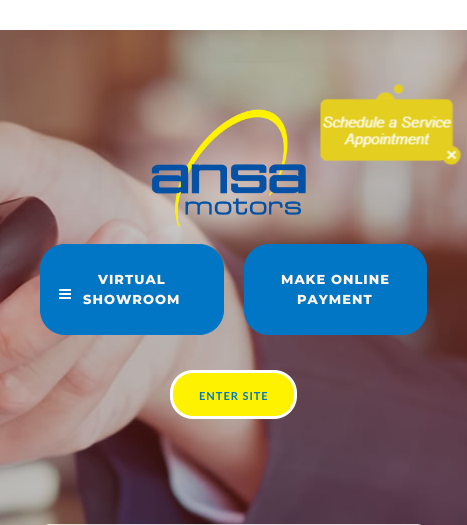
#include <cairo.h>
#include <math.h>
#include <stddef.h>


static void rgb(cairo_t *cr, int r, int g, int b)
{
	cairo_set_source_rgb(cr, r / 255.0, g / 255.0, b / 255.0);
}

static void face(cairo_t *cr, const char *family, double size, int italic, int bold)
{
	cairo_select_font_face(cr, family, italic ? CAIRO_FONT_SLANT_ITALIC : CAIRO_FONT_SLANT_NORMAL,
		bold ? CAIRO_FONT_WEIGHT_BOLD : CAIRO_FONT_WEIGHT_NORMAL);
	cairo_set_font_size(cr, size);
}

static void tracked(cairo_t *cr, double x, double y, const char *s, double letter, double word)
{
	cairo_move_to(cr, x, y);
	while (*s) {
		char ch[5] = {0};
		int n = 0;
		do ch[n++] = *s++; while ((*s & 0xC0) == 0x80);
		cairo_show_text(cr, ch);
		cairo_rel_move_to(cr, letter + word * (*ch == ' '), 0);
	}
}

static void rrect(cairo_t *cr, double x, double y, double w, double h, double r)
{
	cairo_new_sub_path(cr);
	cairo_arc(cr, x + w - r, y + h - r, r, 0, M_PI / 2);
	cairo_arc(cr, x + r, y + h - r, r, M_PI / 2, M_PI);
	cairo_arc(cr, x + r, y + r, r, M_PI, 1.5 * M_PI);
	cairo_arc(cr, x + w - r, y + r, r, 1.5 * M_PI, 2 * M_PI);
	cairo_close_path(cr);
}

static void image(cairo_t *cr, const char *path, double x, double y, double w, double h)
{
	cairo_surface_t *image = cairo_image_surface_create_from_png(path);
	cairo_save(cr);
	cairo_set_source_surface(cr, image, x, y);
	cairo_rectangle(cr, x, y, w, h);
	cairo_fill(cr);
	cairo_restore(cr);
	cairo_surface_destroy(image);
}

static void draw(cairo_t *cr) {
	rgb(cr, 255, 255, 255);
	cairo_paint(cr);
	image(cr, "image1.png", 0, 30, 467, 495);
	image(cr, "image2.png", 101, 63, 256, 213);
	image(cr, "image0.png", 320, 84, 142, 81);
	rgb(cr, 0, 118, 197);
	rrect(cr, 40.5, 244.5, 183, 90, 24.5);
	cairo_fill_preserve(cr);
	cairo_set_line_width(cr, 1);
	cairo_stroke(cr);
	image(cr, "image3.png", 59, 289, 12, 10);
	face(cr, "Montserrat ExtraBold", 13, 0, 0);
	rgb(cr, 255, 245, 238);
	tracked(cr, 98, 284, "VIRTUAL", 1, 0);
	tracked(cr, 83, 304, "SHOWROOM", 1, 0);
	rgb(cr, 0, 118, 197);
	rrect(cr, 244.5, 244.5, 182, 90, 24.5);
	cairo_fill_preserve(cr);
	cairo_stroke(cr);
	rgb(cr, 255, 245, 238);
	tracked(cr, 281, 284, "MAKE ONLINE", 1, 0);
	tracked(cr, 297, 304, "PAYMENT", 1, 0);
	rgb(cr, 255, 242, 0);
	rrect(cr, 171.5, 371.5, 124, 46, 21.5);
	cairo_fill_preserve(cr);
	rgb(cr, 255, 255, 255);
	cairo_set_line_width(cr, 3);
	cairo_stroke(cr);
	face(cr, "Lato", 11, 0, 1);
	rgb(cr, 0, 118, 197);
	tracked(cr, 199, 400, "ENTER SITE", 1, 0);
	cairo_set_source_rgba(cr, 1, 1, 1, 0.85);
	rrect(cr, 40, 524, 387, 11, 10);
	cairo_fill(cr);
}

int main(void) {
	cairo_surface_t *surface = cairo_image_surface_create(CAIRO_FORMAT_RGB24, 467, 525);
	cairo_t *cr = cairo_create(surface);
	cairo_font_options_t *options = cairo_font_options_create();
	cairo_font_options_set_hint_metrics(options, CAIRO_HINT_METRICS_OFF);
	cairo_font_options_set_hint_style(options, CAIRO_HINT_STYLE_NONE);
	cairo_set_font_options(cr, options);
	cairo_set_miter_limit(cr, 4);
	draw(cr);
	cairo_surface_write_to_png(surface, "render.png");
	cairo_font_options_destroy(options);
	cairo_destroy(cr);
	cairo_surface_destroy(surface);
	return 0;
}
